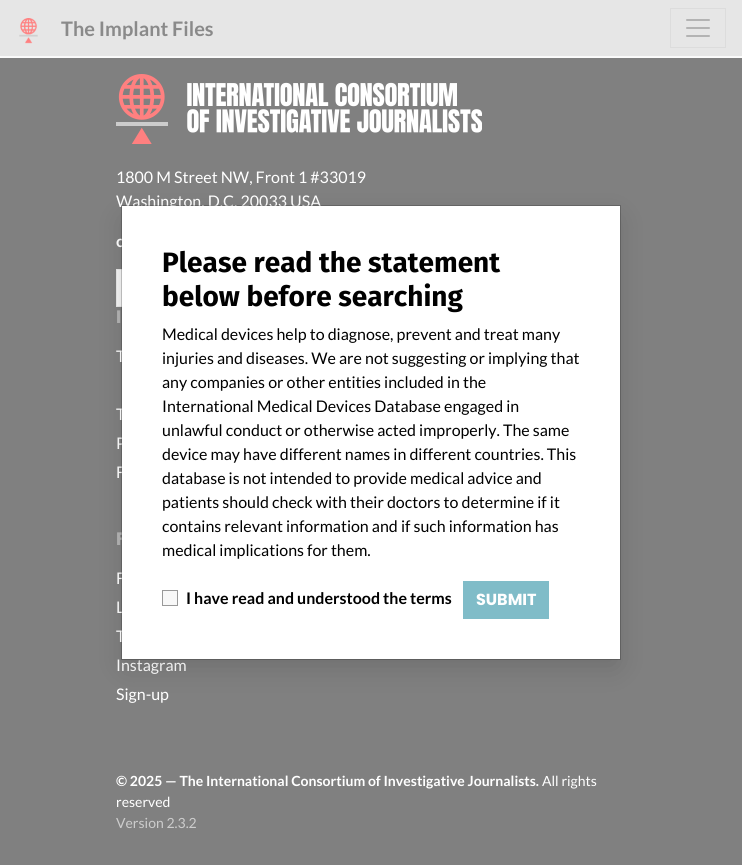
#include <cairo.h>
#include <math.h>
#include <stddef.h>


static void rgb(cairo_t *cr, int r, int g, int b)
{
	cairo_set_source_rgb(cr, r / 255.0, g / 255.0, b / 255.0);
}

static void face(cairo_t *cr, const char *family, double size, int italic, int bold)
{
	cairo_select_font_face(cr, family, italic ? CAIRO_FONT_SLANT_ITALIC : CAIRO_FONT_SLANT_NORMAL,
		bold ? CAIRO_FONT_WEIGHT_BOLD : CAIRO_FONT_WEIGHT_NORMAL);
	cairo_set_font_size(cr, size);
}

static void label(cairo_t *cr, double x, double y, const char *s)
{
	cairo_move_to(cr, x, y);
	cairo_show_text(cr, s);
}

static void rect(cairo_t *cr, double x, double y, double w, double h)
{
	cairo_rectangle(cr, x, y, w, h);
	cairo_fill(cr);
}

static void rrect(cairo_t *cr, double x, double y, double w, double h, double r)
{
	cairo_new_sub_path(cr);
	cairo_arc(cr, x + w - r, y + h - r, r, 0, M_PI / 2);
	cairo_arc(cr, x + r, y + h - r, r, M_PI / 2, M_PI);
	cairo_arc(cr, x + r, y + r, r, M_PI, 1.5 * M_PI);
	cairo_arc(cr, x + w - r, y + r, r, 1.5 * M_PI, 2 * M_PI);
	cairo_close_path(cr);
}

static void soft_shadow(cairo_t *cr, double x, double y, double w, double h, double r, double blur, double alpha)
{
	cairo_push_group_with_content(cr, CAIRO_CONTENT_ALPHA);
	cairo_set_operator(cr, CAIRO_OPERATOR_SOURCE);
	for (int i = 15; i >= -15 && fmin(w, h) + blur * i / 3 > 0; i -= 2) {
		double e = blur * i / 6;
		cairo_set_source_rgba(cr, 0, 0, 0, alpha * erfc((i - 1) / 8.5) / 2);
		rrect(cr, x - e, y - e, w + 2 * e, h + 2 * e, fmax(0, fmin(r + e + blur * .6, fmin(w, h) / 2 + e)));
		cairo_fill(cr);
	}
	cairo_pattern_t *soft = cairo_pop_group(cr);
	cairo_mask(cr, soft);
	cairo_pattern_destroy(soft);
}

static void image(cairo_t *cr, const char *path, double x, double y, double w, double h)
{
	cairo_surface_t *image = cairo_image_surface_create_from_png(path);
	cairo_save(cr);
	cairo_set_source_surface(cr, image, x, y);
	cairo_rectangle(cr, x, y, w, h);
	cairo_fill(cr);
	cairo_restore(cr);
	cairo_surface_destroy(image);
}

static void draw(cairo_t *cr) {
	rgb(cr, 255, 255, 255);
	cairo_paint(cr);
	rgb(cr, 128, 128, 128);
	rect(cr, 0, 58, 742, 807);
	rgb(cr, 128, 128, 128);
	soft_shadow(cr, 0, 0, 742, 56, 0, 3, 0.1);
	rgb(cr, 230, 230, 230);
	rect(cr, 0, 0, 742, 56);
	image(cr, "image0.png", 19, 18, 19, 26);
	face(cr, "Lato", 20, 0, 1);
	rgb(cr, 138, 138, 138);
	label(cr, 61, 36, "The Implant Files");
	cairo_rectangle(cr, 670.5, 8.5, 55, 39);
	rgb(cr, 220, 220, 220);
	cairo_set_line_width(cr, 1);
	cairo_stroke(cr);
	image(cr, "image1.png", 686, 19, 24, 18);
	image(cr, "image2.png", 116, 74, 366, 70);
	face(cr, "Lato", 16, 0, 0);
	rgb(cr, 255, 255, 255);
	label(cr, 116, 183, "1800 M Street NW, Front 1 #33019");
	label(cr, 116, 207, "Washington, D.C. 20033 USA");
	face(cr, "Lato", 16, 0, 1);
	label(cr, 116, 247, "c");
	rgb(cr, 244, 244, 244);
	rect(cr, 117, 270, 5, 36);
	cairo_rectangle(cr, 116.5, 269.5, 41, 37);
	rgb(cr, 230, 230, 230);
	cairo_stroke(cr);
	face(cr, "Poppins", 18, 0, 1);
	rgb(cr, 180, 180, 180);
	label(cr, 116, 323, "I");
	face(cr, "Lato", 16, 0, 0);
	rgb(cr, 255, 255, 255);
	label(cr, 116, 362, "T");
	label(cr, 116, 420, "T");
	label(cr, 116, 449, "P");
	label(cr, 116, 478, "F");
	face(cr, "Poppins", 18, 0, 1);
	rgb(cr, 180, 180, 180);
	label(cr, 116, 545, "F");
	face(cr, "Lato", 16, 0, 0);
	rgb(cr, 255, 255, 255);
	label(cr, 116, 584, "F");
	label(cr, 116, 613, "L");
	label(cr, 116, 642, "T");
	label(cr, 116, 671, "Instagram");
	label(cr, 116, 700, "Sign-up");
	face(cr, "Lato", 14, 0, 1);
	label(cr, 116, 786, "© 2025 — The International Consortium of Investigative Journalists.");
	face(cr, "Lato", 14, 0, 0);
	label(cr, 542, 786, "All rights");
	label(cr, 116, 807, "reserved");
	rgb(cr, 204, 204, 204);
	label(cr, 116, 828, "Version 2.3.2");
	rgb(cr, 0, 0, 0);
	soft_shadow(cr, 126, 220, 490, 445, 0, 15, 0.15);
	rgb(cr, 255, 255, 255);
	rect(cr, 122, 206, 498, 453);
	cairo_rectangle(cr, 121.5, 205.5, 499, 454);
	cairo_set_source_rgba(cr, 0, 0, 0, 0.2);
	cairo_stroke(cr);
	face(cr, "Fira Sans", 28, 0, 1);
	rgb(cr, 0, 0, 0);
	label(cr, 162, 272, "Please read the statement");
	label(cr, 162, 306, "below before searching");
	face(cr, "Lato", 16, 0, 0);
	label(cr, 162, 340, "Medical devices help to diagnose, prevent and treat many");
	label(cr, 162, 364, "injuries and diseases. We are not suggesting or implying that");
	label(cr, 162, 388, "any companies or other entities included in the");
	label(cr, 162, 412, "International Medical Devices Database engaged in");
	label(cr, 162, 436, "unlawful conduct or otherwise acted improperly. The same");
	label(cr, 162, 460, "device may have different names in different countries. This");
	label(cr, 162, 484, "database is not intended to provide medical advice and");
	label(cr, 162, 508, "patients should check with their doctors to determine if it");
	label(cr, 162, 532, "contains relevant information and if such information has");
	label(cr, 162, 556, "medical implications for them.");
	rgb(cr, 248, 248, 248);
	cairo_rectangle(cr, 162.5, 590.5, 15, 15);
	cairo_fill_preserve(cr);
	rgb(cr, 153, 153, 153);
	cairo_stroke(cr);
	face(cr, "Lato", 16, 0, 1);
	rgb(cr, 0, 0, 0);
	label(cr, 186, 604, "I have read and understood the terms");
	rgb(cr, 128, 188, 200);
	rect(cr, 463, 581, 86, 38);
	face(cr, "Poppins", 16, 0, 1);
	rgb(cr, 255, 255, 255);
	label(cr, 476, 605, "SUBMIT");
}

int main(void) {
	cairo_surface_t *surface = cairo_image_surface_create(CAIRO_FORMAT_RGB24, 742, 865);
	cairo_t *cr = cairo_create(surface);
	cairo_font_options_t *options = cairo_font_options_create();
	cairo_font_options_set_hint_metrics(options, CAIRO_HINT_METRICS_OFF);
	cairo_font_options_set_hint_style(options, CAIRO_HINT_STYLE_NONE);
	cairo_set_font_options(cr, options);
	cairo_set_miter_limit(cr, 4);
	draw(cr);
	cairo_surface_write_to_png(surface, "render.png");
	cairo_font_options_destroy(options);
	cairo_destroy(cr);
	cairo_surface_destroy(surface);
	return 0;
}
